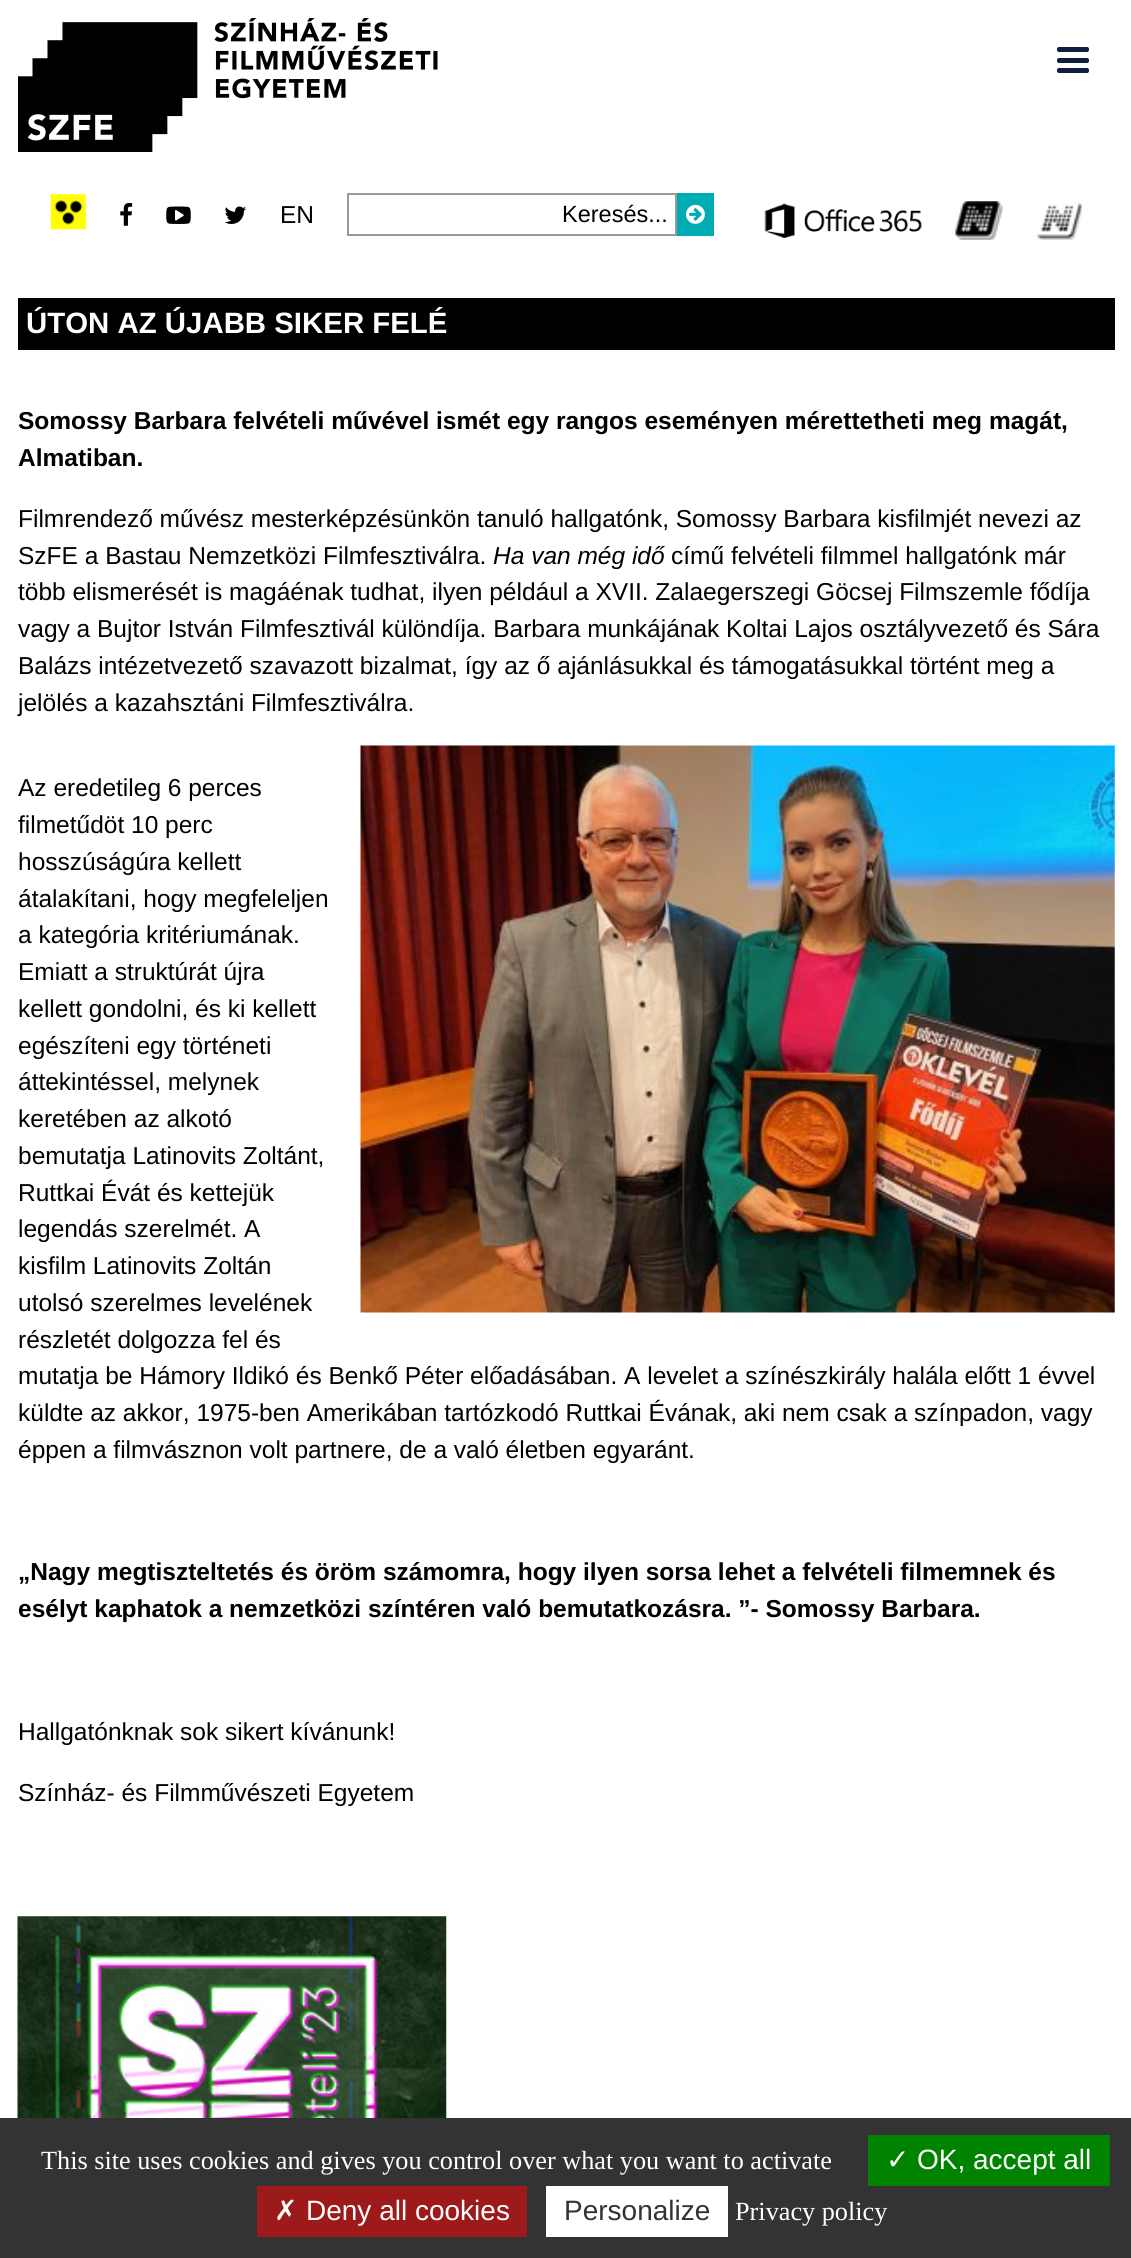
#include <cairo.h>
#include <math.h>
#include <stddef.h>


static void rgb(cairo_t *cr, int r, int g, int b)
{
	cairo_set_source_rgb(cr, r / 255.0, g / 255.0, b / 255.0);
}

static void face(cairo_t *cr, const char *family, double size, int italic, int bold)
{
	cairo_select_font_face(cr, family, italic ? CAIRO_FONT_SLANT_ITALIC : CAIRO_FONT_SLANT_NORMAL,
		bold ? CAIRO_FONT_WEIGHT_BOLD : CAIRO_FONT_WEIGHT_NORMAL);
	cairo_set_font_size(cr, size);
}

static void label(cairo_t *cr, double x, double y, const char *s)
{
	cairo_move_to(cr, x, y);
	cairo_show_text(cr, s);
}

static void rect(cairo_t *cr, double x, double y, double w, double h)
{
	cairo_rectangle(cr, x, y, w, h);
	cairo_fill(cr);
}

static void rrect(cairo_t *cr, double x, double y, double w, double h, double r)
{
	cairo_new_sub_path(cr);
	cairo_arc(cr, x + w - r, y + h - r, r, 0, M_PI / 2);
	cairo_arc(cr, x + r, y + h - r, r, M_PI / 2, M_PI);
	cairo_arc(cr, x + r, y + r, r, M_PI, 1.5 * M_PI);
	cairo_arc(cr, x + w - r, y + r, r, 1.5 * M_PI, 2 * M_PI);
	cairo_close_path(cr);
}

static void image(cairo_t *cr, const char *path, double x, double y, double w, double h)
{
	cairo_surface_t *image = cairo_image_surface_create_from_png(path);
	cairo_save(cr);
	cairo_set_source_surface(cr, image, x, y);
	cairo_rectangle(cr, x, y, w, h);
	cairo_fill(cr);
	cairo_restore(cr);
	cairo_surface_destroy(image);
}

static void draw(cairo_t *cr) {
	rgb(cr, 255, 255, 255);
	cairo_paint(cr);
	image(cr, "image0.png", 18, 18, 420, 134);
	rgb(cr, 13, 31, 58);
	rrect(cr, 1057, 47, 32, 5, 2);
	cairo_fill(cr);
	rrect(cr, 1057, 58, 32, 5, 2);
	cairo_fill(cr);
	rrect(cr, 1057, 68, 32, 5, 2);
	cairo_fill(cr);
	image(cr, "image1.png", 50, 194, 36, 36);
	image(cr, "image2.png", 120, 203, 13, 23);
	image(cr, "image3.png", 166, 206, 25, 18);
	image(cr, "image4.png", 224, 206, 22, 18);
	face(cr, "Liberation Sans", 24.5, 0, 0);
	rgb(cr, 0, 0, 0);
	label(cr, 280, 223, "EN");
	cairo_rectangle(cr, 348, 194, 328, 41);
	rgb(cr, 153, 153, 153);
	cairo_stroke(cr);
	face(cr, "Liberation Sans", 23.5, 0, 0);
	rgb(cr, 0, 0, 0);
	label(cr, 562, 222, "Keresés...");
	rgb(cr, 0, 172, 180);
	rect(cr, 677, 193, 37, 43);
	image(cr, "image5.png", 686, 204, 19, 20);
	image(cr, "image6.png", 764, 203, 158, 35);
	image(cr, "image7.png", 955, 201, 48, 39);
	image(cr, "image8.png", 1036, 202, 46, 38);
	rgb(cr, 0, 0, 0);
	rect(cr, 18, 298, 1097, 52);
	face(cr, "Liberation Sans", 29.4, 0, 1);
	rgb(cr, 255, 255, 255);
	label(cr, 26, 333, "ÚTON AZ ÚJABB SIKER FELÉ");
	face(cr, "Liberation Sans", 24.5, 0, 1);
	rgb(cr, 0, 0, 0);
	label(cr, 18, 429, "Somossy Barbara felvételi művével ismét egy rangos eseményen mérettetheti meg magát,");
	label(cr, 18, 466, "Almatiban.");
	face(cr, "Liberation Sans", 24.5, 0, 0);
	label(cr, 18, 527, "Filmrendező művész mesterképzésünkön tanuló hallgatónk, Somossy Barbara kisfilmjét nevezi az");
	label(cr, 18, 564, "SzFE a Bastau Nemzetközi Filmfesztiválra.");
	face(cr, "Liberation Sans", 24.5, 1, 0);
	label(cr, 493, 564, "Ha van még idő");
	face(cr, "Liberation Sans", 24.5, 0, 0);
	label(cr, 671, 564, "című felvételi filmmel hallgatónk már");
	label(cr, 18, 600, "több elismerését is magáénak tudhat, ilyen például a XVII. Zalaegerszegi Göcsej Filmszemle fődíja");
	label(cr, 18, 637, "vagy a Bujtor István Filmfesztivál különdíja. Barbara munkájának Koltai Lajos osztályvezető és Sára");
	label(cr, 18, 674, "Balázs intézetvezető szavazott bizalmat, így az ő ajánlásukkal és támogatásukkal történt meg a");
	label(cr, 18, 711, "jelölés a kazahsztáni Filmfesztiválra.");
	image(cr, "image9.png", 360, 745, 755, 568);
	label(cr, 18, 796, "Az eredetileg 6 perces");
	label(cr, 18, 833, "filmetűdöt 10 perc");
	label(cr, 18, 870, "hosszúságúra kellett");
	label(cr, 18, 907, "átalakítani, hogy megfeleljen");
	label(cr, 18, 943, "a kategória kritériumának.");
	label(cr, 18, 980, "Emiatt a struktúrát újra");
	label(cr, 18, 1017, "kellett gondolni, és ki kellett");
	label(cr, 18, 1054, "egészíteni egy történeti");
	label(cr, 18, 1090, "áttekintéssel, melynek");
	label(cr, 18, 1127, "keretében az alkotó");
	label(cr, 18, 1164, "bemutatja Latinovits Zoltánt,");
	label(cr, 18, 1201, "Ruttkai Évát és kettejük");
	label(cr, 18, 1237, "legendás szerelmét. A");
	label(cr, 18, 1274, "kisfilm Latinovits Zoltán");
	label(cr, 18, 1311, "utolsó szerelmes levelének");
	label(cr, 18, 1348, "részletét dolgozza fel és");
	label(cr, 18, 1384, "mutatja be Hámory Ildikó és Benkő Péter előadásában. A levelet a színészkirály halála előtt 1 évvel");
	label(cr, 18, 1421, "küldte az akkor, 1975-ben Amerikában tartózkodó Ruttkai Évának, aki nem csak a színpadon, vagy");
	label(cr, 18, 1458, "éppen a filmvásznon volt partnere, de a való életben egyaránt.");
	face(cr, "Liberation Sans", 24.5, 0, 1);
	label(cr, 18, 1580, "„Nagy megtiszteltetés és öröm számomra, hogy ilyen sorsa lehet a felvételi filmemnek és");
	label(cr, 18, 1617, "esélyt kaphatok a nemzetközi színtéren való bemutatkozásra. ”- Somossy Barbara.");
	face(cr, "Liberation Sans", 24.5, 0, 0);
	label(cr, 18, 1740, "Hallgatónknak sok sikert kívánunk!");
	label(cr, 18, 1801, "Színház- és Filmművészeti Egyetem");
	image(cr, "image10.png", 17, 1916, 430, 202);
	rgb(cr, 51, 51, 51);
	rect(cr, 0, 2118, 1131, 140);
	face(cr, "Liberation Serif", 26.25, 0, 0);
	rgb(cr, 255, 255, 255);
	label(cr, 41, 2169, "This site uses cookies and gives you control over what you want to activate");
	rgb(cr, 0, 131, 0);
	rect(cr, 868, 2135, 242, 51);
	face(cr, "DejaVu Sans", 28, 0, 0);
	rgb(cr, 255, 255, 255);
	label(cr, 886, 2169, "✓");
	face(cr, "Liberation Sans", 28, 0, 0);
	label(cr, 917, 2169, "OK, accept all");
	rgb(cr, 156, 26, 26);
	rect(cr, 257, 2186, 270, 51);
	face(cr, "DejaVu Sans", 28, 0, 0);
	rgb(cr, 255, 255, 255);
	label(cr, 274, 2220, "✗");
	face(cr, "Liberation Sans", 28, 0, 0);
	label(cr, 306, 2220, "Deny all cookies");
	rect(cr, 546, 2186, 182, 51);
	rgb(cr, 51, 51, 51);
	label(cr, 564, 2220, "Personalize");
	face(cr, "Liberation Serif", 26.25, 0, 0);
	rgb(cr, 255, 255, 255);
	label(cr, 735, 2220, "Privacy policy");
}

int main(void) {
	cairo_surface_t *surface = cairo_image_surface_create(CAIRO_FORMAT_RGB24, 1131, 2258);
	cairo_t *cr = cairo_create(surface);
	cairo_font_options_t *options = cairo_font_options_create();
	cairo_font_options_set_hint_metrics(options, CAIRO_HINT_METRICS_OFF);
	cairo_font_options_set_hint_style(options, CAIRO_HINT_STYLE_NONE);
	cairo_set_font_options(cr, options);
	cairo_set_miter_limit(cr, 4);
	draw(cr);
	cairo_surface_write_to_png(surface, "render.png");
	cairo_font_options_destroy(options);
	cairo_destroy(cr);
	cairo_surface_destroy(surface);
	return 0;
}
